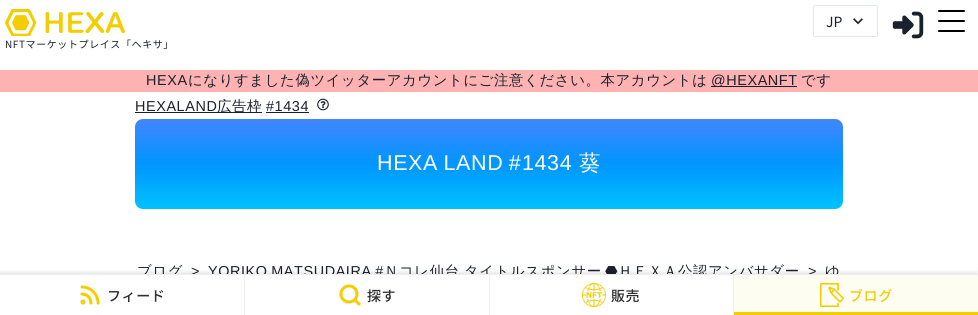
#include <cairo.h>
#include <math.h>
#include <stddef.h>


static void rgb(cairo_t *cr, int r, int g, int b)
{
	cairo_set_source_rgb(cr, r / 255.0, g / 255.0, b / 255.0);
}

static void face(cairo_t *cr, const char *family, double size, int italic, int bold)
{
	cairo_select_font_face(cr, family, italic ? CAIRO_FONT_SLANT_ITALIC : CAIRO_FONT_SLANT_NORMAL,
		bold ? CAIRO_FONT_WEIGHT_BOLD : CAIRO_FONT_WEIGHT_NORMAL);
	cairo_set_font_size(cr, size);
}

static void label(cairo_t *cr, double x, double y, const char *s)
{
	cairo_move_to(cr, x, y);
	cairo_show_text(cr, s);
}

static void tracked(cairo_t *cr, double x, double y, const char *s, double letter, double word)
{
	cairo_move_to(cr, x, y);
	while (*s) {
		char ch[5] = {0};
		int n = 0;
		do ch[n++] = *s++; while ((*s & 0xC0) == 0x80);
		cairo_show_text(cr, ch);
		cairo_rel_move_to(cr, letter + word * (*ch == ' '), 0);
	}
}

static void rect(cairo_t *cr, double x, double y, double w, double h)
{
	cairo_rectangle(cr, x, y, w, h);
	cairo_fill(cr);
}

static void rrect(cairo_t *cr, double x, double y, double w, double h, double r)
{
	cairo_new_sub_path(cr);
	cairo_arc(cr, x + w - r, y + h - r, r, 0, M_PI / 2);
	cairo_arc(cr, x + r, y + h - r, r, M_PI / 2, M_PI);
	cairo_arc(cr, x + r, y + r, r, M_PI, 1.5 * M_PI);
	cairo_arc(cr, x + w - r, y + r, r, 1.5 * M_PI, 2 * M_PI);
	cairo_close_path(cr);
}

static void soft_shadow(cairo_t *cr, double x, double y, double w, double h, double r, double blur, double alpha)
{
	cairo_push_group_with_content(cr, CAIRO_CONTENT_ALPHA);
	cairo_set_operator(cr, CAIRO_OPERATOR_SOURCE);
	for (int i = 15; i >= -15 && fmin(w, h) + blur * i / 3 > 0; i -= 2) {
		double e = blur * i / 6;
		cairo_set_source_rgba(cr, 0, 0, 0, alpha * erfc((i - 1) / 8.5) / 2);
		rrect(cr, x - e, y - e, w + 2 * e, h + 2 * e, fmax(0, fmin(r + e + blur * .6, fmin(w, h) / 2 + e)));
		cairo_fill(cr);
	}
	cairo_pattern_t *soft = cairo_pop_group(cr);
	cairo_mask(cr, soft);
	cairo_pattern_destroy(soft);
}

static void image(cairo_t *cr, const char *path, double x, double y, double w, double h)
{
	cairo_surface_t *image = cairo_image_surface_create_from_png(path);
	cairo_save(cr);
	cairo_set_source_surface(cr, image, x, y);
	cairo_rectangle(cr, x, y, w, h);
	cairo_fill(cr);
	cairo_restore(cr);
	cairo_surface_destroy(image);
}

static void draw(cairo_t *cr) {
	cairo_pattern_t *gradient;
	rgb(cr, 255, 255, 255);
	cairo_paint(cr);
	rrect(cr, 813.5, 5.5, 64, 31, 1.5);
	rgb(cr, 226, 232, 240);
	cairo_set_line_width(cr, 1);
	cairo_stroke(cr);
	face(cr, "Noto Sans JP", 14, 0, 0);
	rgb(cr, 26, 32, 44);
	label(cr, 826, 27, "JP");
	image(cr, "image0.png", 853, 18, 10, 7);
	image(cr, "image1.png", 892, 11, 32, 28);
	rgb(cr, 0, 0, 0);
	rrect(cr, 938, 10, 27, 2, 1);
	cairo_fill(cr);
	rrect(cr, 938, 20, 27, 2, 1);
	cairo_fill(cr);
	rrect(cr, 938, 30, 27, 2, 1);
	cairo_fill(cr);
	image(cr, "image2.png", 5, 9, 120, 27);
	face(cr, "Noto Sans JP", 10, 0, 0);
	rgb(cr, 26, 32, 44);
	tracked(cr, 5, 48, "NFTマーケットプレイス「ヘキサ」", 0.6, 0);
	rgb(cr, 254, 178, 178);
	rect(cr, 0, 70, 978, 22);
	face(cr, "Liberation Sans", 14.4, 0, 0);
	rgb(cr, 26, 32, 44);
	tracked(cr, 146, 85, "HEXA", 0.6, 0);
	face(cr, "WenQuanYi Zen Hei Medium", 14.4, 0, 0);
	tracked(cr, 188, 85, "になりすました偽ツイッターアカウントにご注意ください。本アカウントは", 0.6, 0);
	rect(cr, 711, 86, 86, 1);
	face(cr, "Liberation Sans", 14.4, 0, 0);
	tracked(cr, 711, 85, "@HEXANFT", 0.6, 0);
	face(cr, "WenQuanYi Zen Hei Medium", 14.4, 0, 0);
	tracked(cr, 801, 85, "です", 0.6, 0);
	face(cr, "Liberation Sans", 14.4, 0, 0);
	tracked(cr, 135, 111, "HEXALAND", 0.6, 0);
	rect(cr, 135, 112, 127, 1);
	face(cr, "WenQuanYi Zen Hei Medium", 14.4, 0, 0);
	tracked(cr, 217, 111, "広告枠", 0.6, 0);
	face(cr, "Liberation Sans", 14.4, 0, 0);
	tracked(cr, 266, 111, "#1434", 0.6, 0);
	rect(cr, 266, 112, 43, 1);
	image(cr, "image3.png", 317, 98, 12, 13);
	gradient = cairo_pattern_create_linear(489, 209, 489, 119);
	cairo_pattern_add_color_stop_rgba(gradient, 0, 0, 0.761, 1, 1);
	cairo_pattern_add_color_stop_rgba(gradient, 0.5, 0, 0.588, 1, 1);
	cairo_pattern_add_color_stop_rgba(gradient, 1, 0.259, 0.522, 1, 1);
	cairo_set_source(cr, gradient);
	cairo_pattern_destroy(gradient);
	rrect(cr, 135, 119, 708, 90, 8);
	cairo_fill(cr);
	face(cr, "Liberation Sans", 21.5, 0, 0);
	rgb(cr, 255, 255, 255);
	tracked(cr, 377, 170, "HEXA LAND #", 0.6, -1);
	tracked(cr, 522, 170, "1434", 0.6, 0);
	face(cr, "WenQuanYi Zen Hei Medium", 21.5, 0, 0);
	tracked(cr, 579, 170, "葵", 0.6, 0);
	face(cr, "WenQuanYi Zen Hei Medium", 14.4, 0, 0);
	rgb(cr, 26, 32, 44);
	tracked(cr, 137, 276, "ブログ", 0.6, 0);
	face(cr, "Liberation Sans", 14.4, 0, 0);
	tracked(cr, 191, 276, ">", 0.6, 0);
	tracked(cr, 208, 276, "YORIKO MATSUDAIRA #", 0.6, -1);
	face(cr, "WenQuanYi Zen Hei Medium", 14.4, 0, 0);
	tracked(cr, 384, 276, "Ｎコレ仙台", 0.6, 0);
	tracked(cr, 464, 276, "タイトルスポンサー", 0.6, 0);
	face(cr, "DejaVu Sans", 14.4, 0, 0);
	tracked(cr, 605, 276, "⬣", 0.6, 0);
	face(cr, "WenQuanYi Zen Hei Medium", 14.4, 0, 0);
	tracked(cr, 618, 276, "ＨＥＸＡ公認アンバサダー", 0.6, 0);
	face(cr, "Liberation Sans", 14.4, 0, 0);
	tracked(cr, 808, 276, ">", 0.6, 0);
	face(cr, "WenQuanYi Zen Hei Medium", 14.4, 0, 0);
	tracked(cr, 825, 276, "ゆ", 0.6, 0);
	rgb(cr, 0, 0, 0);
	soft_shadow(cr, 0, 272, 978, 41, 0, 2, 0.1);
	rgb(cr, 255, 255, 255);
	rect(cr, 0, 275, 733, 40);
	rgb(cr, 238, 238, 238);
	rect(cr, 0, 274, 978, 1);
	rect(cr, 244, 275, 1, 40);
	image(cr, "image4.png", 80, 285, 20, 20);
	face(cr, "Noto Sans JP Medium", 14, 0, 0);
	rgb(cr, 46, 46, 46);
	tracked(cr, 107, 301, "フィード", 0.6, 0);
	rgb(cr, 238, 238, 238);
	rect(cr, 489, 275, 1, 40);
	image(cr, "image5.png", 339, 284, 22, 22);
	rgb(cr, 46, 46, 46);
	tracked(cr, 367, 301, "探す", 0.6, 0);
	rgb(cr, 238, 238, 238);
	rect(cr, 733, 275, 1, 40);
	image(cr, "image6.png", 582, 283, 24, 24);
	rgb(cr, 46, 46, 46);
	tracked(cr, 611, 301, "販売", 0.6, 0);
	rgb(cr, 254, 253, 242);
	rect(cr, 734, 275, 244, 37);
	image(cr, "image7.png", 820, 283, 24, 24);
	rgb(cr, 242, 205, 0);
	tracked(cr, 849, 301, "ブログ", 0.6, 0);
	rect(cr, 734, 312, 244, 3);
}

int main(void) {
	cairo_surface_t *surface = cairo_image_surface_create(CAIRO_FORMAT_RGB24, 978, 315);
	cairo_t *cr = cairo_create(surface);
	cairo_font_options_t *options = cairo_font_options_create();
	cairo_font_options_set_hint_metrics(options, CAIRO_HINT_METRICS_OFF);
	cairo_font_options_set_hint_style(options, CAIRO_HINT_STYLE_NONE);
	cairo_set_font_options(cr, options);
	cairo_set_miter_limit(cr, 4);
	draw(cr);
	cairo_surface_write_to_png(surface, "render.png");
	cairo_font_options_destroy(options);
	cairo_destroy(cr);
	cairo_surface_destroy(surface);
	return 0;
}
